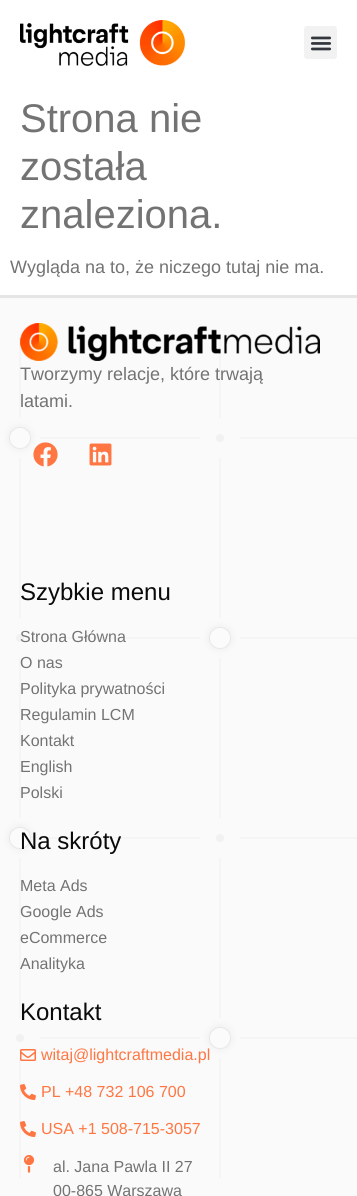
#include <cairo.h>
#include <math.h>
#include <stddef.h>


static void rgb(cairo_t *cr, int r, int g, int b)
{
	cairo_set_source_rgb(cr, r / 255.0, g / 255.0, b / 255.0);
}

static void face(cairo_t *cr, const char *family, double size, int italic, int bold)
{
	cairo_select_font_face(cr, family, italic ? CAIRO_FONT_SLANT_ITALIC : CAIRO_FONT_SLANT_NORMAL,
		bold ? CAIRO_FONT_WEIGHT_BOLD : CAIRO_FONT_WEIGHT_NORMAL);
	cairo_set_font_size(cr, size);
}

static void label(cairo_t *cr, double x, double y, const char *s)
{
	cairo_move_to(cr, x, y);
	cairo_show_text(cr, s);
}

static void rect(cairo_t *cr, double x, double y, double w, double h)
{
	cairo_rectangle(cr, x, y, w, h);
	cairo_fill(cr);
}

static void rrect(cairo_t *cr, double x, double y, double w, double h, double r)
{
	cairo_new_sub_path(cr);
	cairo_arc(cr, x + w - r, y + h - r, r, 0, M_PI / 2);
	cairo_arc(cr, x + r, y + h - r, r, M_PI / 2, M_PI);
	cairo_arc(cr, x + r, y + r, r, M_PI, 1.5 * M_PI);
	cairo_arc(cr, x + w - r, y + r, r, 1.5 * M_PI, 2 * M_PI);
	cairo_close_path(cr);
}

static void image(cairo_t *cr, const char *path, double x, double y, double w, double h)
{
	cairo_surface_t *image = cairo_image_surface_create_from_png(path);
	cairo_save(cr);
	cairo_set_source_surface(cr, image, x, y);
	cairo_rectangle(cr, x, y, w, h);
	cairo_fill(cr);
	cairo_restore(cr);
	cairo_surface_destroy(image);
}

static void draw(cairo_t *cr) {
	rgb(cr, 255, 255, 255);
	cairo_paint(cr);
	image(cr, "image0.png", 20, 20, 165, 46);
	rgb(cr, 242, 242, 242);
	rrect(cr, 304, 26, 33, 33, 3);
	cairo_fill(cr);
	image(cr, "image1.png", 310, 36, 22, 15);
	face(cr, "Liberation Sans", 40, 0, 0);
	rgb(cr, 115, 115, 115);
	label(cr, 20, 132, "Strona nie");
	label(cr, 20, 180, "została");
	label(cr, 20, 228, "znaleziona.");
	face(cr, "Liberation Sans", 18, 0, 0);
	label(cr, 10, 273, "Wygląda na to, że niczego tutaj nie ma.");
	rgb(cr, 250, 250, 250);
	rect(cr, 0, 1178, 357, 18);
	image(cr, "image2.png", 0, 298, 357, 880);
	rgb(cr, 229, 229, 229);
	rect(cr, 0, 295, 357, 3);
	image(cr, "image3.png", 20, 323, 300, 38);
	rgb(cr, 115, 115, 115);
	label(cr, 20, 380, "Tworzymy relacje, które trwają");
	label(cr, 20, 407, "latami.");
	image(cr, "image4.png", 33, 442, 25, 25);
	image(cr, "image5.png", 89, 443, 23, 23);
	face(cr, "Liberation Sans", 24, 0, 0);
	rgb(cr, 10, 10, 10);
	label(cr, 20, 600, "Szybkie menu");
	face(cr, "Liberation Sans", 16, 0, 0);
	rgb(cr, 115, 115, 115);
	label(cr, 20, 642, "Strona Główna");
	label(cr, 20, 668, "O nas");
	label(cr, 20, 694, "Polityka prywatności");
	label(cr, 20, 720, "Regulamin LCM");
	label(cr, 20, 746, "Kontakt");
	label(cr, 20, 772, "English");
	label(cr, 20, 798, "Polski");
	face(cr, "Liberation Sans", 24, 0, 0);
	rgb(cr, 10, 10, 10);
	label(cr, 20, 849, "Na skróty");
	face(cr, "Liberation Sans", 16, 0, 0);
	rgb(cr, 115, 115, 115);
	label(cr, 20, 891, "Meta Ads");
	label(cr, 20, 917, "Google Ads");
	label(cr, 20, 943, "eCommerce");
	label(cr, 20, 969, "Analityka");
	face(cr, "Liberation Sans", 24, 0, 0);
	rgb(cr, 10, 10, 10);
	label(cr, 20, 1020, "Kontakt");
	image(cr, "image6.png", 20, 1049, 16, 12);
	face(cr, "Liberation Sans", 16, 0, 0);
	rgb(cr, 255, 118, 66);
	label(cr, 41, 1060, "witaj@lightcraftmedia.pl");
	image(cr, "image7.png", 20, 1084, 16, 16);
	label(cr, 41, 1097, "PL +48 732 106 700");
	image(cr, "image7.png", 20, 1121, 16, 16);
	label(cr, 41, 1134, "USA +1 508-715-3057");
	image(cr, "image8.png", 23, 1155, 12, 18);
	rgb(cr, 115, 115, 115);
	label(cr, 53, 1172, "al. Jana Pawla II 27");
	label(cr, 53, 1196, "00-865 Warszawa");
}

int main(void) {
	cairo_surface_t *surface = cairo_image_surface_create(CAIRO_FORMAT_RGB24, 357, 1196);
	cairo_t *cr = cairo_create(surface);
	cairo_font_options_t *options = cairo_font_options_create();
	cairo_font_options_set_hint_metrics(options, CAIRO_HINT_METRICS_OFF);
	cairo_font_options_set_hint_style(options, CAIRO_HINT_STYLE_NONE);
	cairo_set_font_options(cr, options);
	cairo_set_miter_limit(cr, 4);
	draw(cr);
	cairo_surface_write_to_png(surface, "render.png");
	cairo_font_options_destroy(options);
	cairo_destroy(cr);
	cairo_surface_destroy(surface);
	return 0;
}
